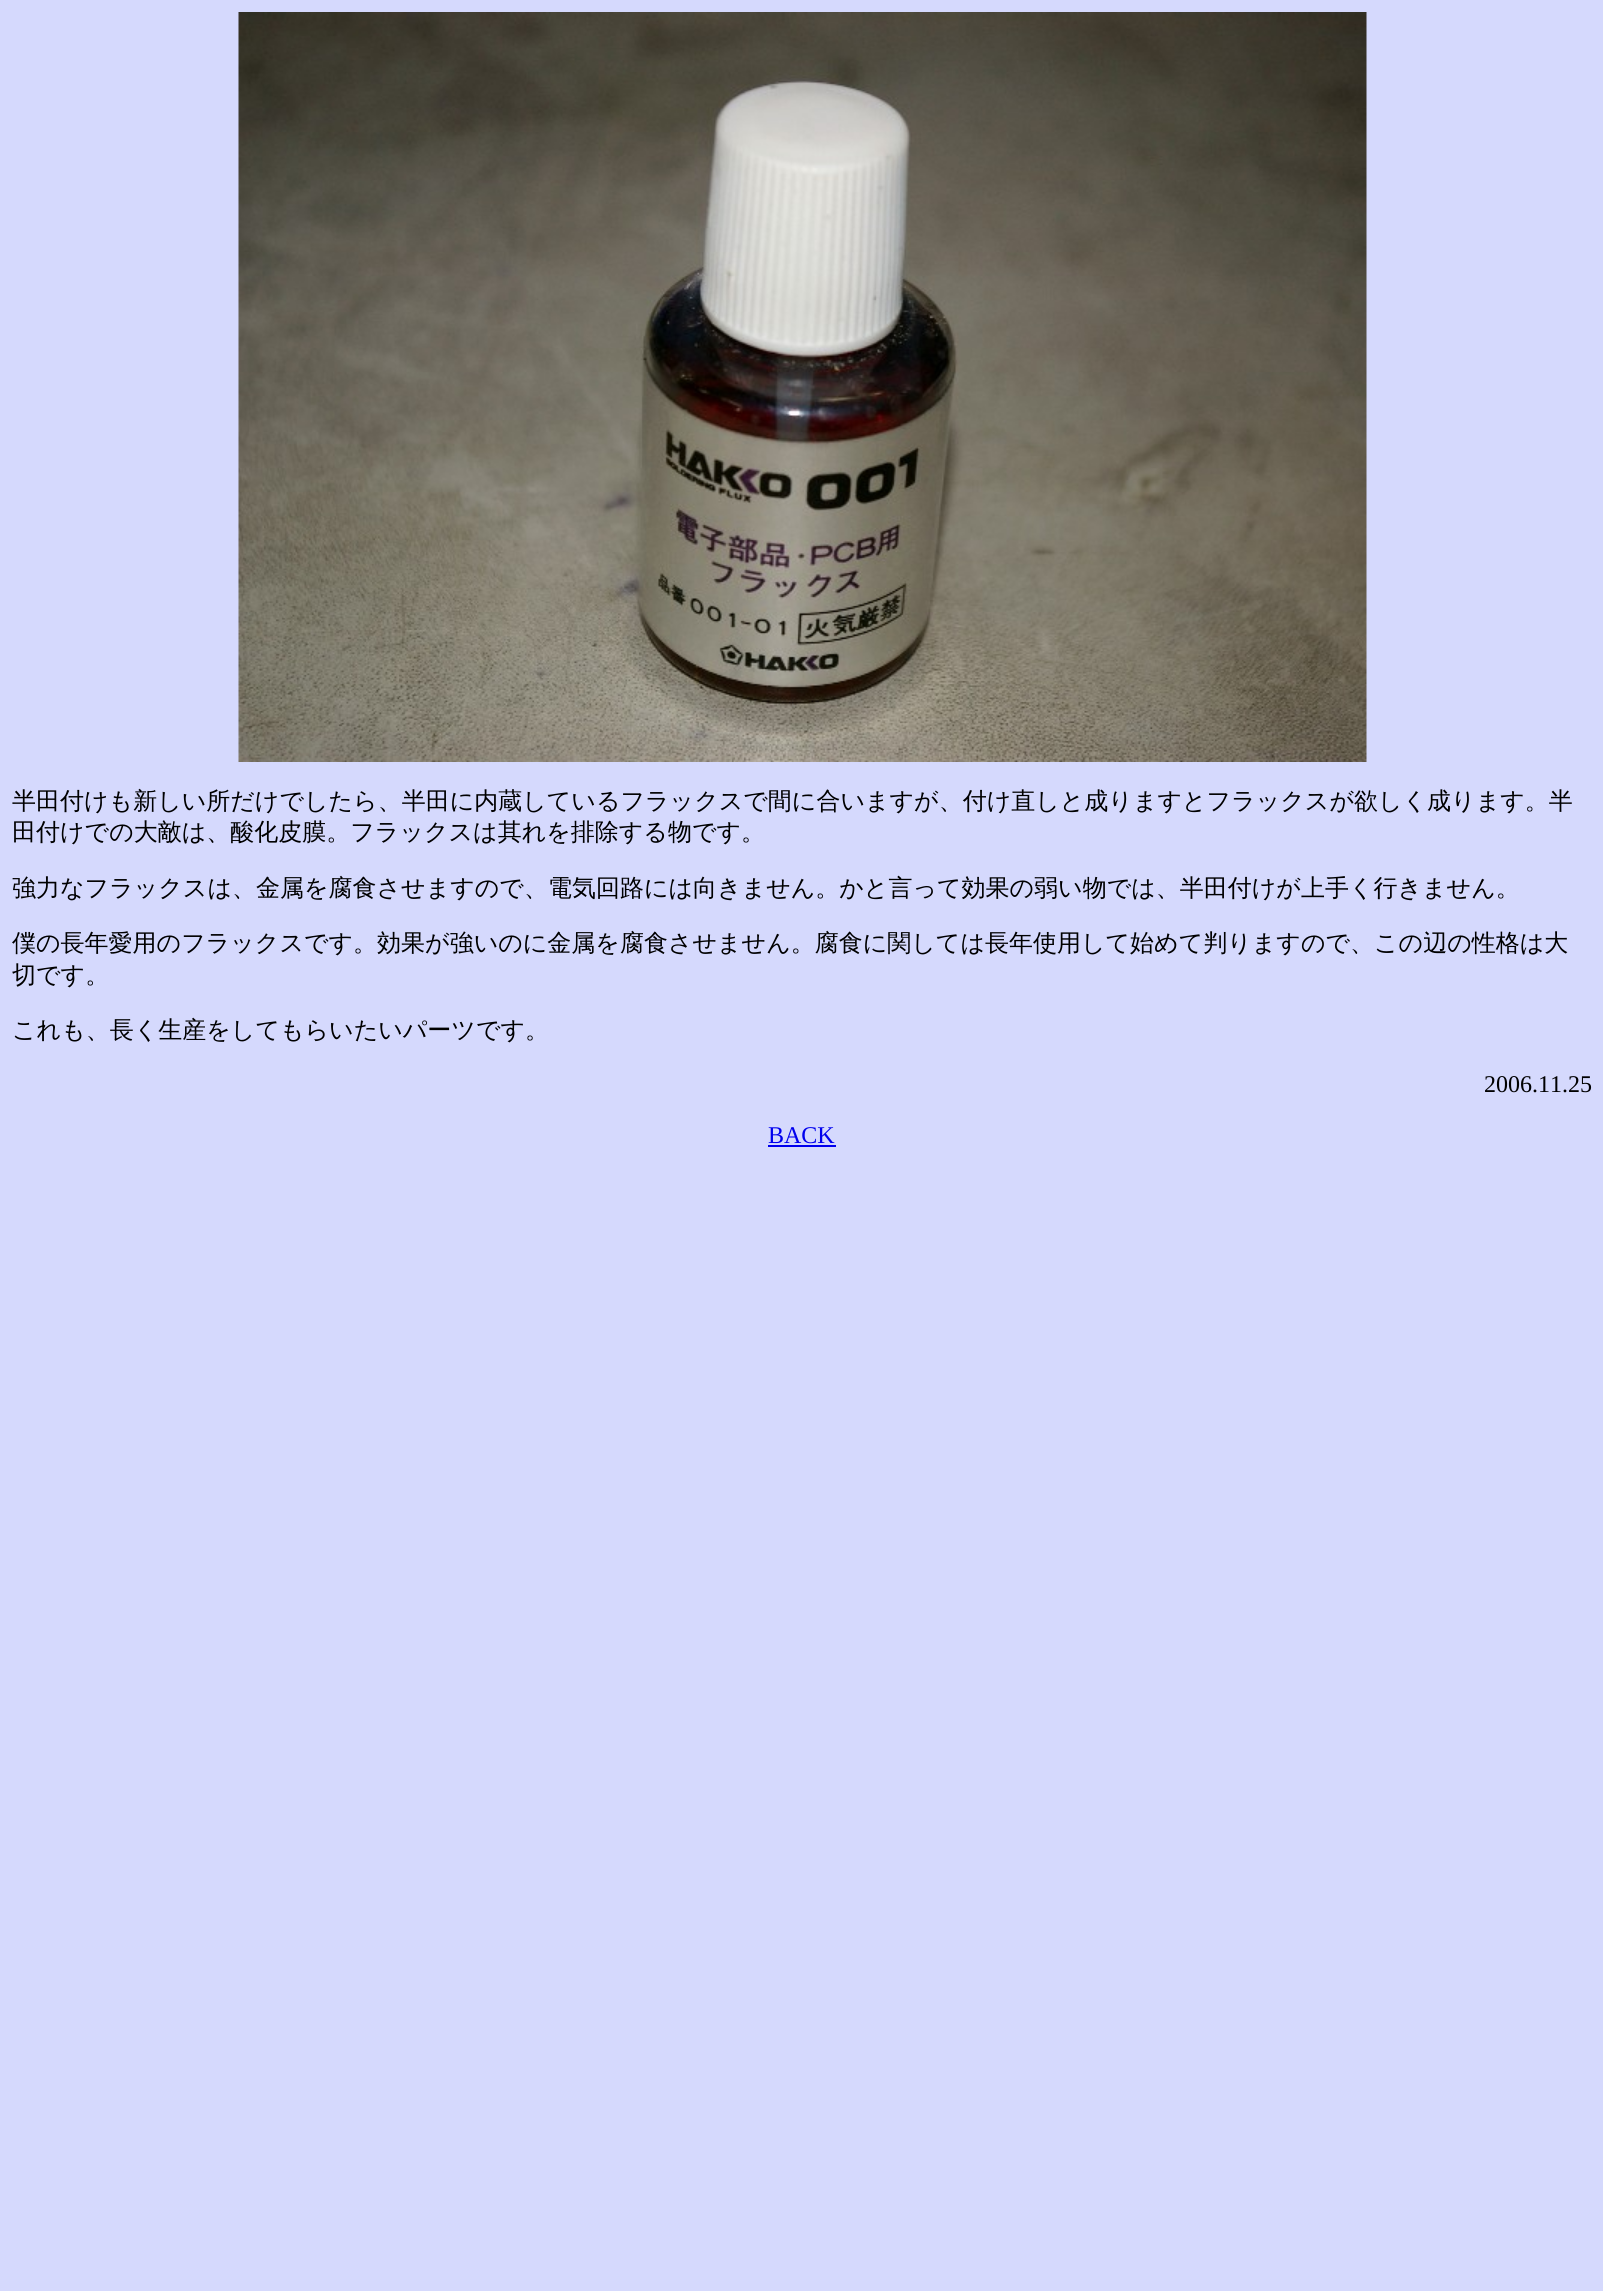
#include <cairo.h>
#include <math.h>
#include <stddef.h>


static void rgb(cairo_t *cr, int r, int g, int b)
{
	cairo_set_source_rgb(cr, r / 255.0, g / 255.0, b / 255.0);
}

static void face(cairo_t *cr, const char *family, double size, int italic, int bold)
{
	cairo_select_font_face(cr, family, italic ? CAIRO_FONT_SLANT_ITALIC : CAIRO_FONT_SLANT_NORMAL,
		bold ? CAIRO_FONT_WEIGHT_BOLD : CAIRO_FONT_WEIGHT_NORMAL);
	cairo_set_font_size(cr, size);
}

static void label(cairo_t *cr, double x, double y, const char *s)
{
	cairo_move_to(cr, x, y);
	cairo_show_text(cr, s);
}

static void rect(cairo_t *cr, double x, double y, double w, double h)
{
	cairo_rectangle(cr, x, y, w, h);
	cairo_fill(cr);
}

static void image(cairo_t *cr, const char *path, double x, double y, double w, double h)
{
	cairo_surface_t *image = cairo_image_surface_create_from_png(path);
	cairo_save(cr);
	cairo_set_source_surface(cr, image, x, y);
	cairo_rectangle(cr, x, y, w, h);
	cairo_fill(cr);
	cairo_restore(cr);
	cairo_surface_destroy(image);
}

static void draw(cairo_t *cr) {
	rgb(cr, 213, 217, 253);
	cairo_paint(cr);
	image(cr, "image0.png", 238, 12, 1129, 750);
	face(cr, "WenQuanYi Zen Hei Medium", 24, 0, 0);
	rgb(cr, 0, 0, 0);
	label(cr, 12, 809, "半田付けも新しい所だけでしたら、半田に内蔵しているフラックスで間に合いますが、付け直しと成りますとフラックスが欲しく成ります。半");
	label(cr, 12, 840, "田付けでの大敵は、酸化皮膜。フラックスは其れを排除する物です。");
	label(cr, 12, 896, "強力なフラックスは、金属を腐食させますので、電気回路には向きません。かと言って効果の弱い物では、半田付けが上手く行きません。");
	label(cr, 12, 951, "僕の長年愛用のフラックスです。効果が強いのに金属を腐食させません。腐食に関しては長年使用して始めて判りますので、この辺の性格は大");
	label(cr, 12, 983, "切です。");
	label(cr, 12, 1038, "これも、長く生産をしてもらいたいパーツです。");
	face(cr, "Liberation Serif", 24, 0, 0);
	label(cr, 1484, 1092, "2006.11.25");
	rgb(cr, 0, 0, 238);
	label(cr, 768, 1143, "BACK");
	rect(cr, 768, 1145, 68, 2);
}

int main(void) {
	cairo_surface_t *surface = cairo_image_surface_create(CAIRO_FORMAT_RGB24, 1603, 2291);
	cairo_t *cr = cairo_create(surface);
	cairo_font_options_t *options = cairo_font_options_create();
	cairo_font_options_set_hint_metrics(options, CAIRO_HINT_METRICS_OFF);
	cairo_font_options_set_hint_style(options, CAIRO_HINT_STYLE_NONE);
	cairo_set_font_options(cr, options);
	cairo_set_miter_limit(cr, 4);
	draw(cr);
	cairo_surface_write_to_png(surface, "render.png");
	cairo_font_options_destroy(options);
	cairo_destroy(cr);
	cairo_surface_destroy(surface);
	return 0;
}
